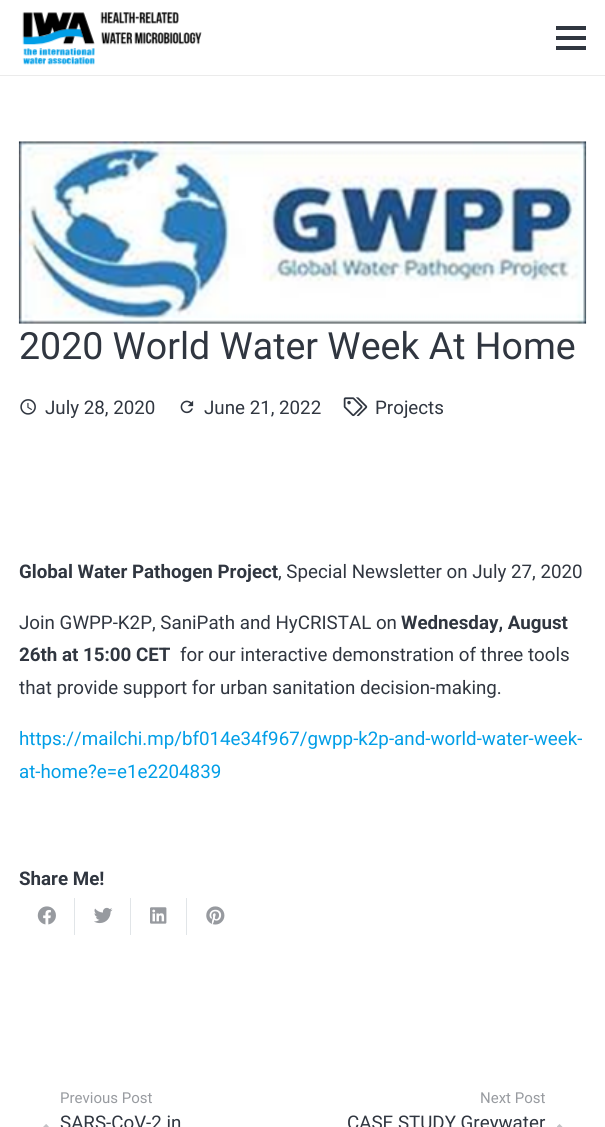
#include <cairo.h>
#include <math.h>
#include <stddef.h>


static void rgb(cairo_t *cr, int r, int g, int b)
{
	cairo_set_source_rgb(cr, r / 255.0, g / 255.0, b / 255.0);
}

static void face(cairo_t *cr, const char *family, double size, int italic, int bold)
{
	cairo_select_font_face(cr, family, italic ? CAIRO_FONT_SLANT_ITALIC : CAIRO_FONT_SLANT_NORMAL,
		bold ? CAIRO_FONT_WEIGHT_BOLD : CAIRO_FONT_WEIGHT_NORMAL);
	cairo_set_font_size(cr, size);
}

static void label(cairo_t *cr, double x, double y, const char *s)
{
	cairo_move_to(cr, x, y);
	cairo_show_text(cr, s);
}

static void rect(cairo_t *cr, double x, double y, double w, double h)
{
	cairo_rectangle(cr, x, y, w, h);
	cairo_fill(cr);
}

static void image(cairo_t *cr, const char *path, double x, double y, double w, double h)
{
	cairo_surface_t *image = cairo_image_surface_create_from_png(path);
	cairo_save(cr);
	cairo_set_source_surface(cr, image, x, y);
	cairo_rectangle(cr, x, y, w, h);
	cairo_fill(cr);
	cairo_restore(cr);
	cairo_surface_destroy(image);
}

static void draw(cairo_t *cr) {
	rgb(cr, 255, 255, 255);
	cairo_paint(cr);
	rgb(cr, 235, 235, 235);
	rect(cr, 0, 75, 605, 1);
	image(cr, "image0.png", 22, 12, 180, 53);
	rgb(cr, 48, 54, 64);
	rect(cr, 556, 36, 30, 4);
	rect(cr, 556, 26, 30, 4);
	rect(cr, 556, 46, 30, 4);
	image(cr, "image1.png", 18, 141, 569, 183);
	face(cr, "Roboto", 37.5, 0, 0);
	label(cr, 19, 359, "2020 World Water Week At Home");
	image(cr, "image2.png", 20, 399, 16, 16);
	face(cr, "Roboto", 18.75, 0, 0);
	label(cr, 45, 414, "July 28, 2020");
	image(cr, "image3.png", 180, 400, 14, 14);
	label(cr, 204, 414, "June 21, 2022");
	image(cr, "image4.png", 343, 397, 25, 20);
	label(cr, 375, 414, "Projects");
	face(cr, "Roboto", 18.75, 0, 1);
	label(cr, 19, 578, "Global Water Pathogen Project");
	face(cr, "Roboto", 18.75, 0, 0);
	label(cr, 278, 578, ", Special Newsletter on July 27, 2020");
	label(cr, 19, 629, "Join GWPP-K2P, SaniPath and HyCRISTAL on");
	face(cr, "Roboto", 18.75, 0, 1);
	label(cr, 401, 629, "Wednesday, August");
	label(cr, 19, 661, "26th at 15:00 CET");
	face(cr, "Roboto", 18.75, 0, 0);
	label(cr, 180, 661, "for our interactive demonstration of three tools");
	label(cr, 19, 694, "that provide support for urban sanitation decision-making.");
	rgb(cr, 1, 158, 231);
	label(cr, 19, 745, "https://mailchi.mp/bf014e34f967/gwpp-k2p-and-world-water-week-");
	label(cr, 19, 778, "at-home?e=e1e2204839");
	face(cr, "Roboto", 18.75, 0, 1);
	rgb(cr, 48, 54, 64);
	label(cr, 19, 885, "Share Me!");
	rgb(cr, 225, 229, 232);
	rect(cr, 74, 898, 1, 37);
	image(cr, "image5.png", 37, 906, 19, 19);
	rect(cr, 130, 898, 1, 37);
	image(cr, "image6.png", 94, 907, 19, 17);
	rect(cr, 186, 898, 1, 37);
	image(cr, "image7.png", 150, 907, 17, 17);
	image(cr, "image8.png", 206, 906, 19, 19);
	face(cr, "Roboto", 15, 0, 0);
	rgb(cr, 152, 155, 160);
	label(cr, 60, 1103, "Previous Post");
	image(cr, "image9.png", 43, 1124, 6, 3);
	face(cr, "Roboto", 18.75, 0, 0);
	rgb(cr, 48, 54, 64);
	label(cr, 60, 1129, "SARS-CoV-2 in");
	face(cr, "Roboto", 15, 0, 0);
	rgb(cr, 152, 155, 160);
	label(cr, 480, 1103, "Next Post");
	face(cr, "Roboto", 18.75, 0, 0);
	rgb(cr, 48, 54, 64);
	label(cr, 347, 1129, "CASE STUDY Greywater");
	image(cr, "image10.png", 557, 1124, 6, 3);
}

int main(void) {
	cairo_surface_t *surface = cairo_image_surface_create(CAIRO_FORMAT_RGB24, 605, 1127);
	cairo_t *cr = cairo_create(surface);
	cairo_font_options_t *options = cairo_font_options_create();
	cairo_font_options_set_hint_metrics(options, CAIRO_HINT_METRICS_OFF);
	cairo_font_options_set_hint_style(options, CAIRO_HINT_STYLE_NONE);
	cairo_set_font_options(cr, options);
	cairo_set_miter_limit(cr, 4);
	draw(cr);
	cairo_surface_write_to_png(surface, "render.png");
	cairo_font_options_destroy(options);
	cairo_destroy(cr);
	cairo_surface_destroy(surface);
	return 0;
}
